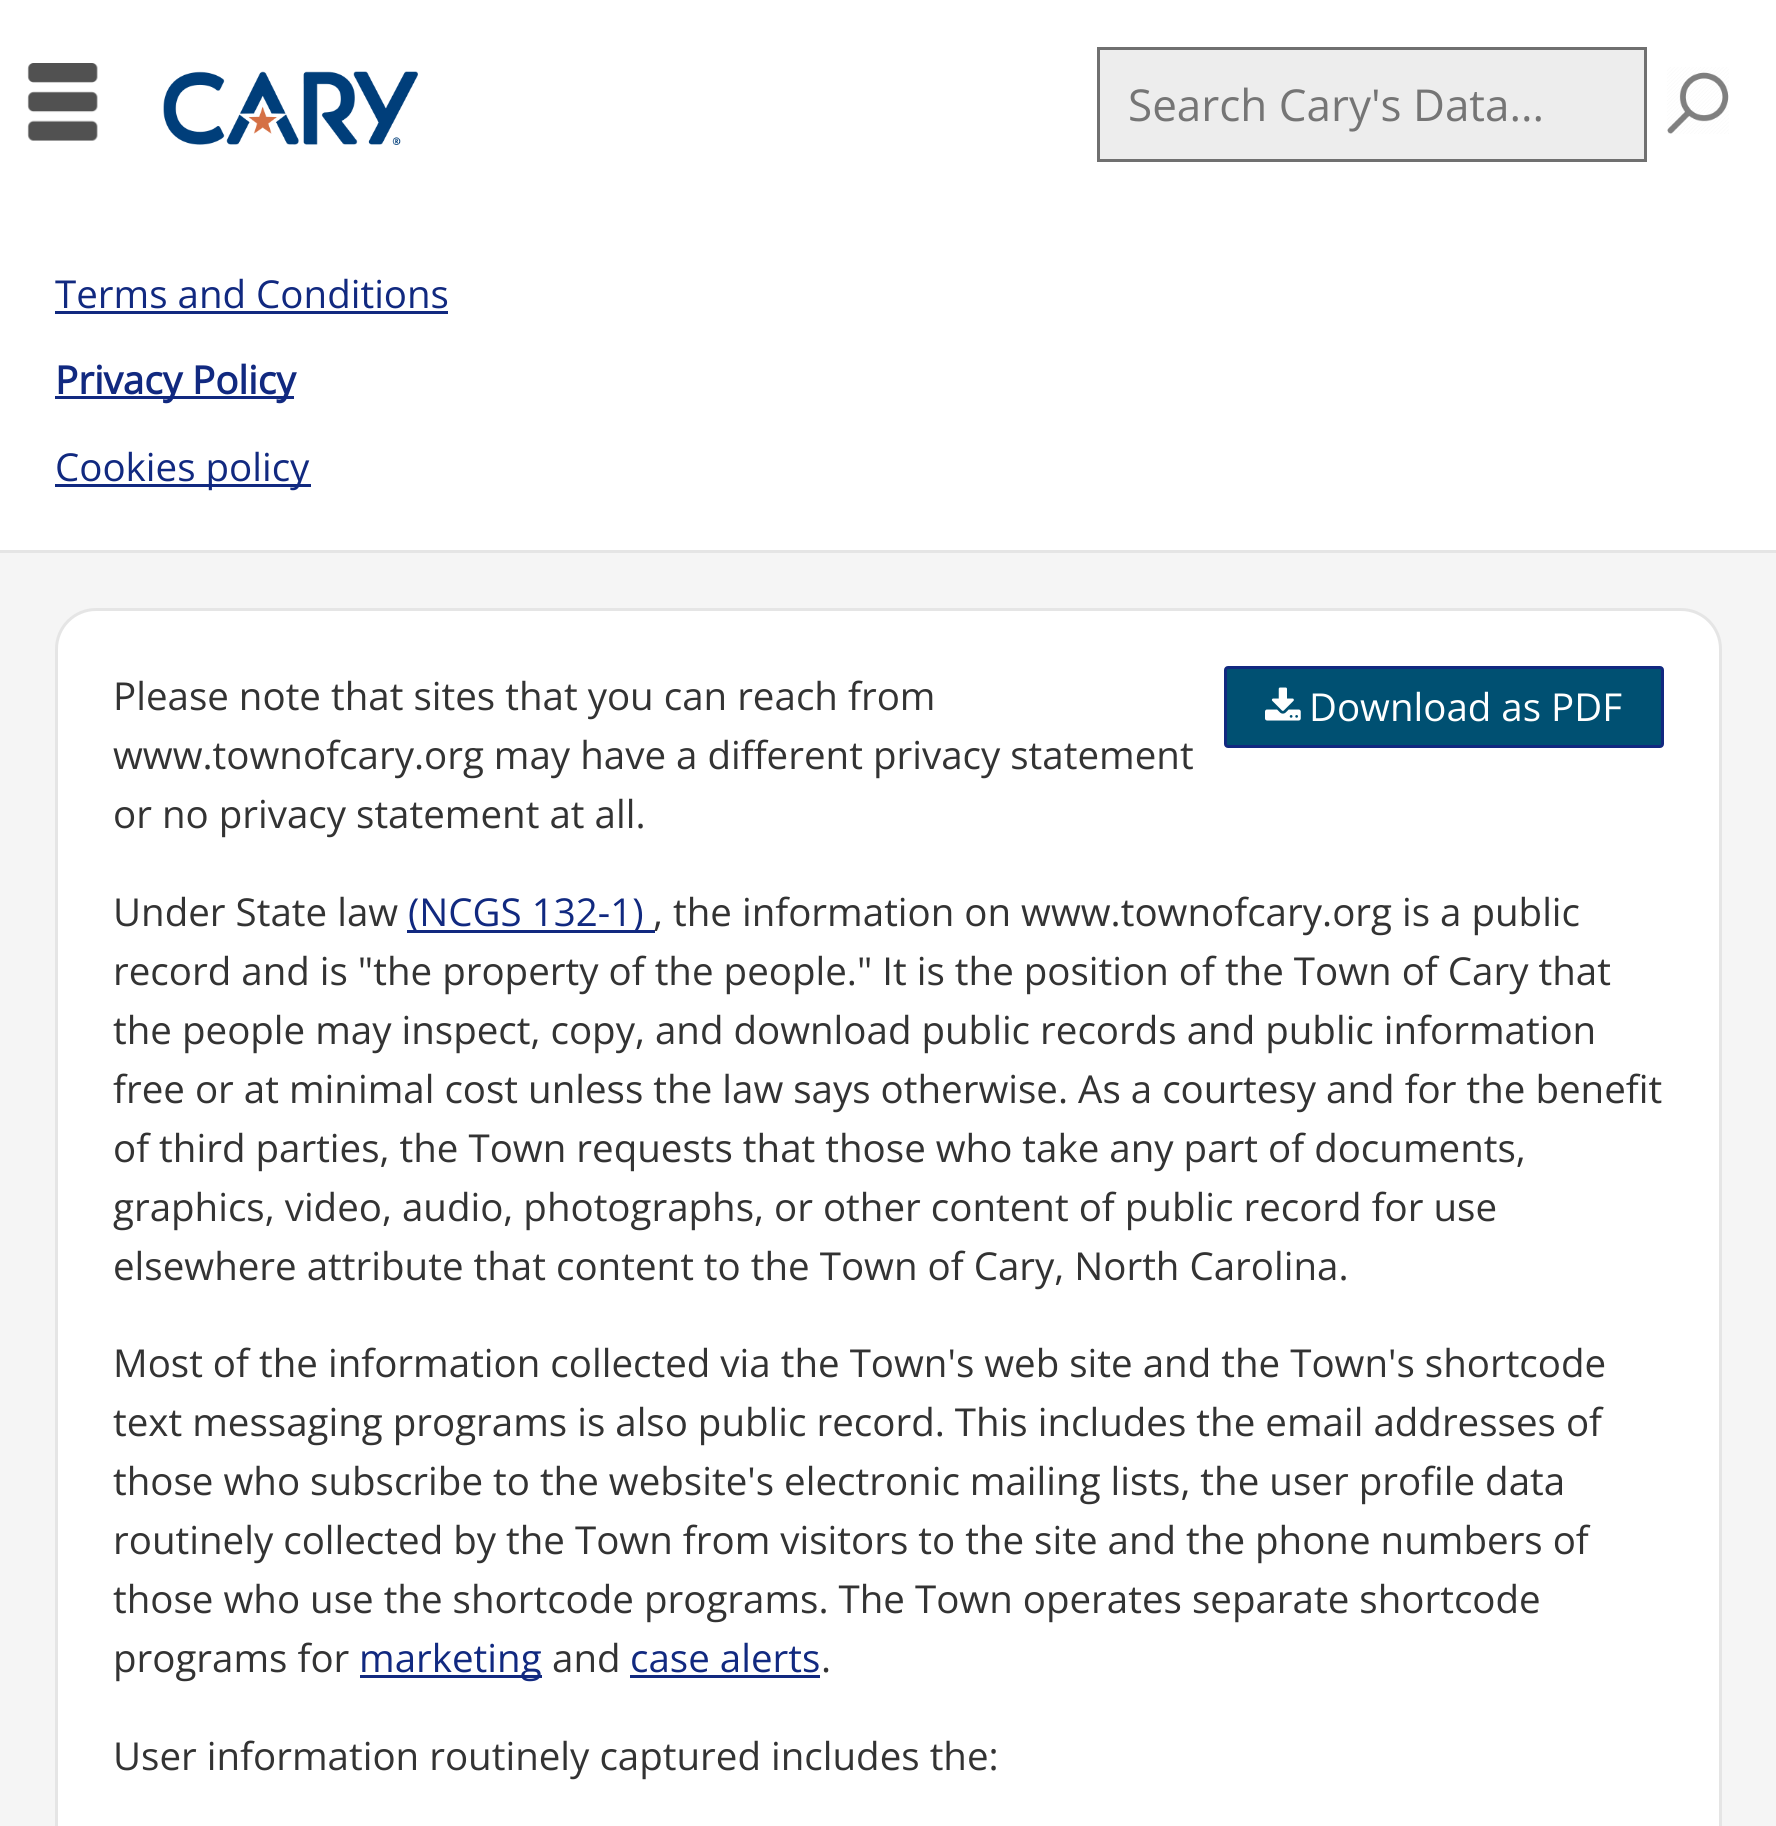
#include <cairo.h>
#include <math.h>
#include <stddef.h>


static void rgb(cairo_t *cr, int r, int g, int b)
{
	cairo_set_source_rgb(cr, r / 255.0, g / 255.0, b / 255.0);
}

static void face(cairo_t *cr, const char *family, double size, int italic, int bold)
{
	cairo_select_font_face(cr, family, italic ? CAIRO_FONT_SLANT_ITALIC : CAIRO_FONT_SLANT_NORMAL,
		bold ? CAIRO_FONT_WEIGHT_BOLD : CAIRO_FONT_WEIGHT_NORMAL);
	cairo_set_font_size(cr, size);
}

static void label(cairo_t *cr, double x, double y, const char *s)
{
	cairo_move_to(cr, x, y);
	cairo_show_text(cr, s);
}

static void rect(cairo_t *cr, double x, double y, double w, double h)
{
	cairo_rectangle(cr, x, y, w, h);
	cairo_fill(cr);
}

static void rrect(cairo_t *cr, double x, double y, double w, double h, double r)
{
	cairo_new_sub_path(cr);
	cairo_arc(cr, x + w - r, y + h - r, r, 0, M_PI / 2);
	cairo_arc(cr, x + r, y + h - r, r, M_PI / 2, M_PI);
	cairo_arc(cr, x + r, y + r, r, M_PI, 1.5 * M_PI);
	cairo_arc(cr, x + w - r, y + r, r, 1.5 * M_PI, 2 * M_PI);
	cairo_close_path(cr);
}

static void image(cairo_t *cr, const char *path, double x, double y, double w, double h)
{
	cairo_surface_t *image = cairo_image_surface_create_from_png(path);
	cairo_save(cr);
	cairo_set_source_surface(cr, image, x, y);
	cairo_rectangle(cr, x, y, w, h);
	cairo_fill(cr);
	cairo_restore(cr);
	cairo_surface_destroy(image);
}

static void draw(cairo_t *cr) {
	rgb(cr, 245, 245, 245);
	cairo_paint(cr);
	rgb(cr, 255, 255, 255);
	rect(cr, 0, 0, 1776, 550);
	image(cr, "image0.png", 27, 63, 71, 78);
	image(cr, "image1.png", 163, 71, 255, 74);
	rgb(cr, 237, 237, 237);
	cairo_rectangle(cr, 1098.5, 48.5, 547, 112);
	cairo_fill_preserve(cr);
	rgb(cr, 112, 112, 112);
	cairo_set_line_width(cr, 3);
	cairo_stroke(cr);
	face(cr, "Open Sans", 44, 0, 0);
	rgb(cr, 117, 117, 117);
	label(cr, 1128, 121, "Search Cary's Data...");
	image(cr, "image2.png", 1667, 67, 62, 67);
	rgb(cr, 229, 229, 229);
	rect(cr, 0, 550, 1776, 3);
	face(cr, "Open Sans", 38.5, 0, 0);
	rgb(cr, 17, 41, 128);
	label(cr, 55, 308, "Terms and Conditions");
	rect(cr, 55, 311, 393, 3);
	rect(cr, 55, 396, 239, 3);
	face(cr, "Open Sans", 38.5, 0, 1);
	label(cr, 55, 394, "Privacy Policy");
	rect(cr, 55, 484, 256, 3);
	face(cr, "Open Sans", 38.5, 0, 0);
	label(cr, 55, 481, "Cookies policy");
	rgb(cr, 255, 255, 255);
	rrect(cr, 56.5, 609.5, 1664, 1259, 39.5);
	cairo_fill_preserve(cr);
	rgb(cr, 229, 229, 229);
	cairo_stroke(cr);
	rgb(cr, 51, 51, 51);
	label(cr, 113, 710, "Please note that sites that you can reach from");
	label(cr, 113, 769, "www.townofcary.org may have a different privacy statement");
	label(cr, 113, 828, "or no privacy statement at all.");
	rgb(cr, 0, 80, 114);
	rrect(cr, 1225.5, 667.5, 437, 79, 2.5);
	cairo_fill_preserve(cr);
	rgb(cr, 17, 41, 128);
	cairo_stroke(cr);
	image(cr, "image3.png", 1265, 687, 36, 34);
	rgb(cr, 255, 255, 255);
	label(cr, 1309, 721, "Download as PDF");
	rgb(cr, 51, 51, 51);
	label(cr, 113, 926, "Under State law");
	rgb(cr, 17, 41, 128);
	rect(cr, 407, 930, 248, 3);
	label(cr, 408, 926, "(NCGS 132-1)");
	rgb(cr, 51, 51, 51);
	label(cr, 653, 926, ", the information on www.townofcary.org is a public");
	label(cr, 113, 985, "record and is \"the property of the people.\" It is the position of the Town of Cary that");
	label(cr, 113, 1044, "the people may inspect, copy, and download public records and public information");
	label(cr, 113, 1103, "free or at minimal cost unless the law says otherwise. As a courtesy and for the benefit");
	label(cr, 113, 1162, "of third parties, the Town requests that those who take any part of documents,");
	label(cr, 113, 1221, "graphics, video, audio, photographs, or other content of public record for use");
	label(cr, 113, 1280, "elsewhere attribute that content to the Town of Cary, North Carolina.");
	label(cr, 113, 1377, "Most of the information collected via the Town's web site and the Town's shortcode");
	label(cr, 113, 1436, "text messaging programs is also public record. This includes the email addresses of");
	label(cr, 113, 1495, "those who subscribe to the website's electronic mailing lists, the user profile data");
	label(cr, 113, 1554, "routinely collected by the Town from visitors to the site and the phone numbers of");
	label(cr, 113, 1613, "those who use the shortcode programs. The Town operates separate shortcode");
	label(cr, 113, 1672, "programs for");
	rgb(cr, 17, 41, 128);
	rect(cr, 360, 1675, 182, 3);
	label(cr, 359, 1672, "marketing");
	rgb(cr, 51, 51, 51);
	label(cr, 552, 1672, "and");
	rgb(cr, 17, 41, 128);
	label(cr, 630, 1672, "case alerts");
	rect(cr, 630, 1675, 190, 3);
	rgb(cr, 51, 51, 51);
	label(cr, 821, 1672, ".");
	label(cr, 113, 1770, "User information routinely captured includes the:");
}

int main(void) {
	cairo_surface_t *surface = cairo_image_surface_create(CAIRO_FORMAT_RGB24, 1776, 1826);
	cairo_t *cr = cairo_create(surface);
	cairo_font_options_t *options = cairo_font_options_create();
	cairo_font_options_set_hint_metrics(options, CAIRO_HINT_METRICS_OFF);
	cairo_font_options_set_hint_style(options, CAIRO_HINT_STYLE_NONE);
	cairo_set_font_options(cr, options);
	cairo_set_miter_limit(cr, 4);
	draw(cr);
	cairo_surface_write_to_png(surface, "render.png");
	cairo_font_options_destroy(options);
	cairo_destroy(cr);
	cairo_surface_destroy(surface);
	return 0;
}
